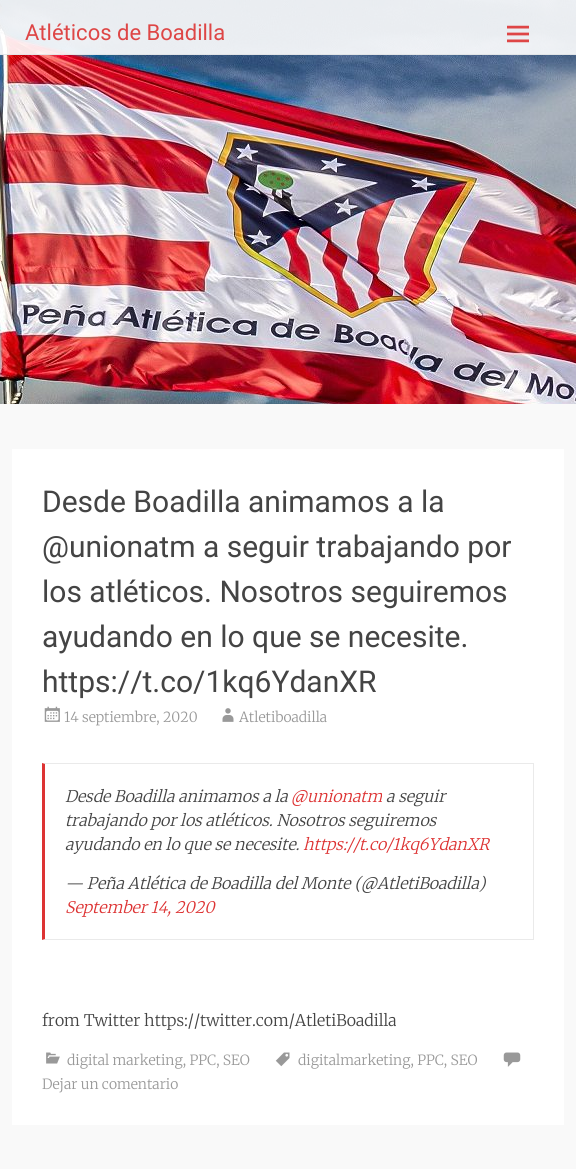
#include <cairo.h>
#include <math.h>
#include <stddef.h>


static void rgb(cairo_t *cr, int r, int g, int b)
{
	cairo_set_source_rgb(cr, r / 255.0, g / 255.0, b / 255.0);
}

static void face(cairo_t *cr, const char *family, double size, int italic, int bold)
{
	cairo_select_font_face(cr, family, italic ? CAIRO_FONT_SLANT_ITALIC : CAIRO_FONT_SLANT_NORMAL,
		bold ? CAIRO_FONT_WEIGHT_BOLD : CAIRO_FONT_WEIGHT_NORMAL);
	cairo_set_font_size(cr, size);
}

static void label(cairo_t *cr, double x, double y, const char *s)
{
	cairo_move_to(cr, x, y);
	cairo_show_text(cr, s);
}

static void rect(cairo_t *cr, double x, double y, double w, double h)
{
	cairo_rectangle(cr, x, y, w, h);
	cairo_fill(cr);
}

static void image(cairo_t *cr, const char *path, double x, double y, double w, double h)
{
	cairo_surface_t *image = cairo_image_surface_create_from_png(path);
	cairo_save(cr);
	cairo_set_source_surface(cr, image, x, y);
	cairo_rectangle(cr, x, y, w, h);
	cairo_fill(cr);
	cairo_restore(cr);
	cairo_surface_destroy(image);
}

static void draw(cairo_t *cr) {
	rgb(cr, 255, 255, 255);
	cairo_paint(cr);
	image(cr, "image0.png", 0, 0, 576, 404);
	cairo_set_source_rgba(cr, 1, 1, 1, 0.9);
	rect(cr, 0, 0, 576, 55);
	cairo_set_source_rgba(cr, 0.882, 0.894, 0.902, 0.9);
	rect(cr, 0, 54, 576, 1);
	face(cr, "Roboto", 22, 0, 0);
	rgb(cr, 222, 70, 70);
	label(cr, 25, 40, "Atléticos de Boadilla");
	image(cr, "image1.png", 507, 25, 22, 18);
	rgb(cr, 249, 249, 249);
	rect(cr, 0, 404, 576, 765);
	rgb(cr, 255, 255, 255);
	rect(cr, 12, 449, 552, 676);
	face(cr, "Roboto", 30, 0, 0);
	rgb(cr, 68, 68, 68);
	label(cr, 42, 512, "Desde Boadilla animamos a la");
	label(cr, 42, 557, "@unionatm a seguir trabajando por");
	label(cr, 42, 602, "los atléticos. Nosotros seguiremos");
	label(cr, 42, 647, "ayudando en lo que se necesite.");
	label(cr, 42, 692, "https://t.co/1kq6YdanXR");
	image(cr, "image2.png", 44, 706, 16, 16);
	face(cr, "Merriweather Light", 14, 0, 0);
	rgb(cr, 153, 153, 153);
	label(cr, 64, 722, "14 septiembre, 2020");
	image(cr, "image3.png", 222, 708, 12, 14);
	label(cr, 239, 722, "Atletiboadilla");
	rgb(cr, 234, 234, 234);
	cairo_new_path(cr);
	cairo_move_to(cr, 42, 763);
	cairo_line_to(cr, 534, 763);
	cairo_line_to(cr, 533, 764);
	cairo_line_to(cr, 45, 764);
	cairo_close_path(cr);
	cairo_fill(cr);
	rect(cr, 533, 763, 1, 177);
	cairo_new_path(cr);
	cairo_move_to(cr, 534, 940);
	cairo_line_to(cr, 42, 940);
	cairo_line_to(cr, 45, 939);
	cairo_line_to(cr, 533, 939);
	cairo_close_path(cr);
	cairo_fill(cr);
	rgb(cr, 221, 51, 51);
	cairo_new_path(cr);
	cairo_move_to(cr, 42, 940);
	cairo_line_to(cr, 42, 763);
	cairo_line_to(cr, 45, 764);
	cairo_line_to(cr, 45, 939);
	cairo_close_path(cr);
	cairo_fill(cr);
	face(cr, "Merriweather Light", 16, 1, 0);
	rgb(cr, 68, 68, 68);
	label(cr, 65, 802, "Desde Boadilla animamos a la");
	rgb(cr, 221, 51, 51);
	label(cr, 291, 802, "@unionatm");
	rgb(cr, 68, 68, 68);
	label(cr, 386, 802, "a seguir");
	label(cr, 65, 826, "trabajando por los atléticos. Nosotros seguiremos");
	label(cr, 65, 850, "ayudando en lo que se necesite.");
	rgb(cr, 221, 51, 51);
	label(cr, 303, 850, "https://t.co/1kq6YdanXR");
	rgb(cr, 68, 68, 68);
	label(cr, 65, 889, "— Peña Atlética de Boadilla del Monte (@AtletiBoadilla)");
	rgb(cr, 221, 51, 51);
	label(cr, 65, 913, "September 14, 2020");
	face(cr, "Merriweather Light", 16, 0, 0);
	rgb(cr, 68, 68, 68);
	label(cr, 42, 1026, "from Twitter https://twitter.com/AtletiBoadilla");
	image(cr, "image4.png", 46, 1052, 14, 12);
	face(cr, "Merriweather Light", 14, 0, 0);
	rgb(cr, 153, 153, 153);
	label(cr, 67, 1065, "digital marketing, PPC, SEO");
	image(cr, "image5.png", 275, 1052, 15, 15);
	label(cr, 298, 1065, "digitalmarketing, PPC, SEO");
	image(cr, "image6.png", 503, 1052, 18, 15);
	label(cr, 42, 1089, "Dejar un comentario");
}

int main(void) {
	cairo_surface_t *surface = cairo_image_surface_create(CAIRO_FORMAT_RGB24, 576, 1169);
	cairo_t *cr = cairo_create(surface);
	cairo_font_options_t *options = cairo_font_options_create();
	cairo_font_options_set_hint_metrics(options, CAIRO_HINT_METRICS_OFF);
	cairo_font_options_set_hint_style(options, CAIRO_HINT_STYLE_NONE);
	cairo_set_font_options(cr, options);
	cairo_set_miter_limit(cr, 4);
	draw(cr);
	cairo_surface_write_to_png(surface, "render.png");
	cairo_font_options_destroy(options);
	cairo_destroy(cr);
	cairo_surface_destroy(surface);
	return 0;
}
